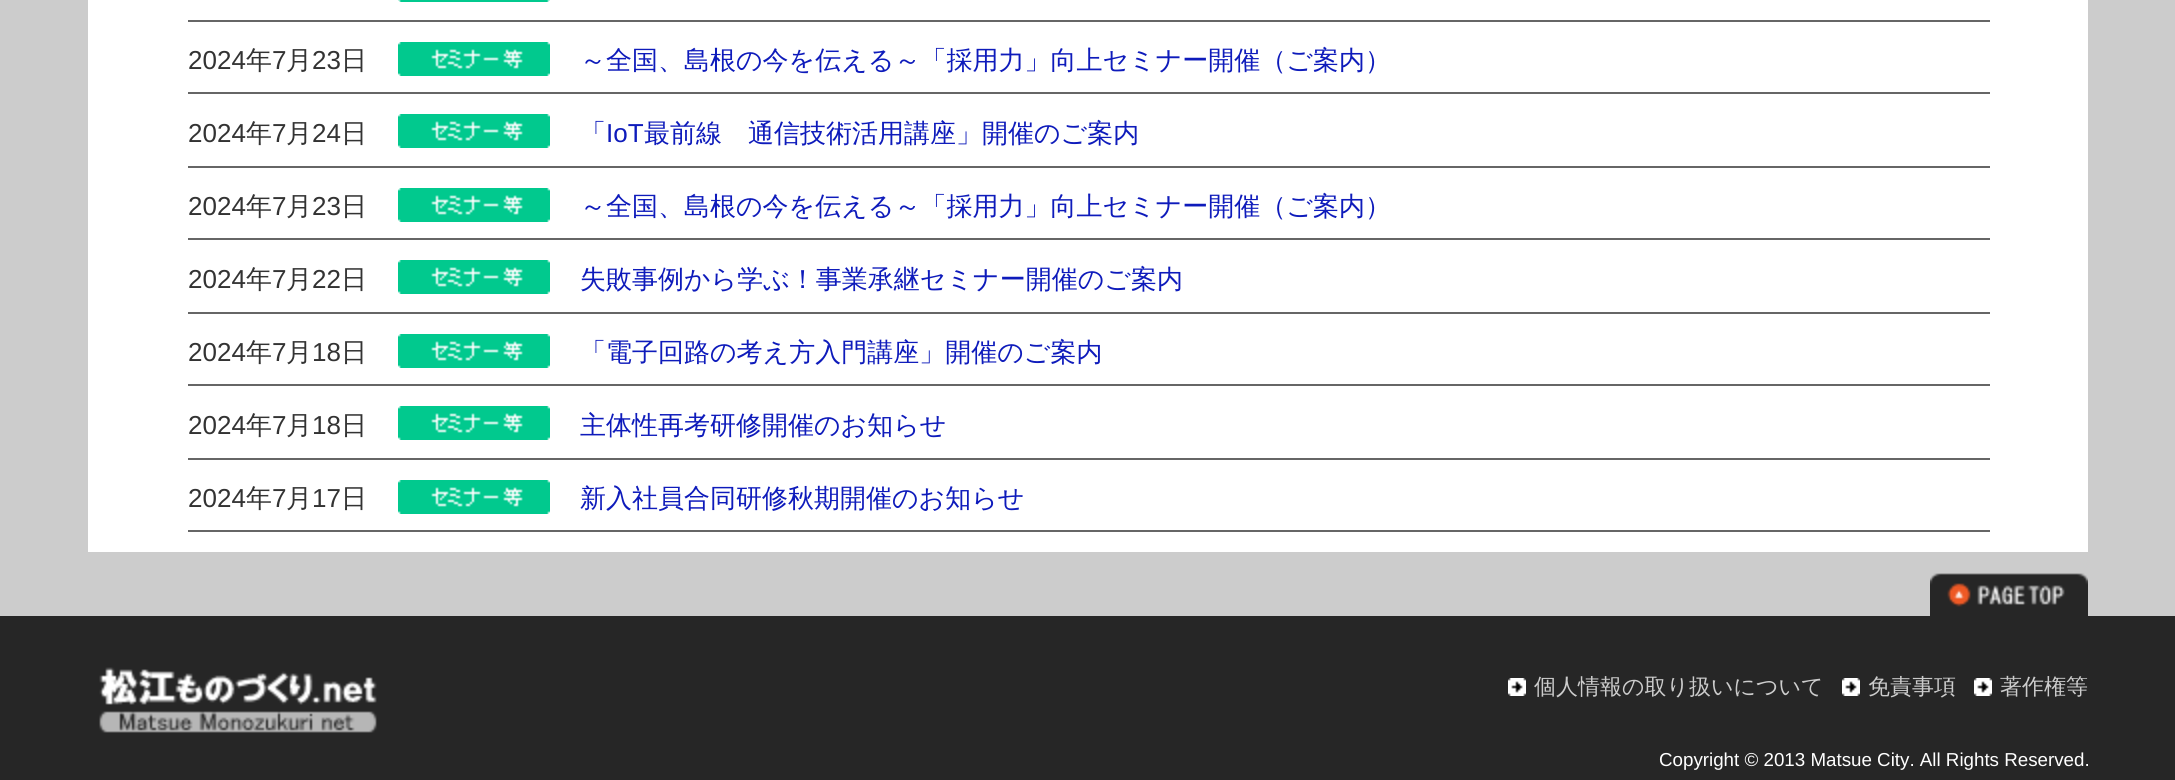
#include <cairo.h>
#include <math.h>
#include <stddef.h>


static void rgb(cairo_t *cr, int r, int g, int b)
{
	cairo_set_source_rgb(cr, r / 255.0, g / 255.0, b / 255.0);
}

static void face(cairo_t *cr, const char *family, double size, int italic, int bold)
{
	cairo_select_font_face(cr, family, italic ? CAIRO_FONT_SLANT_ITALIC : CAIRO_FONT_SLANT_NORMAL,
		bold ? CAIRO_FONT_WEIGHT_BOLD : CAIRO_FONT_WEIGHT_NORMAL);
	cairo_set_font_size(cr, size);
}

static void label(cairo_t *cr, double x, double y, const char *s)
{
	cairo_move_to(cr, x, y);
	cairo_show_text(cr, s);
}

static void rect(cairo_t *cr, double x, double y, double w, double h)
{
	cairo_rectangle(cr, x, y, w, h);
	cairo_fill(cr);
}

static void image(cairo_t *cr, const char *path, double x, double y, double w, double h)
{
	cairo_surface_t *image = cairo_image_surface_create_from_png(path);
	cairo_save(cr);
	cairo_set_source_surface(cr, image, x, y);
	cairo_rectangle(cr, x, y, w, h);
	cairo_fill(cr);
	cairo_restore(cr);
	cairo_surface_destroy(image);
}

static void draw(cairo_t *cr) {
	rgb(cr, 204, 204, 204);
	cairo_paint(cr);
	rgb(cr, 255, 255, 255);
	rect(cr, 88, 0, 2000, 552);
	image(cr, "image0.png", 398, 0, 152, 2);
	rgb(cr, 102, 102, 102);
	rect(cr, 188, 20, 1802, 2);
	face(cr, "Liberation Sans", 26, 0, 0);
	rgb(cr, 51, 51, 51);
	label(cr, 188, 69, "2024");
	face(cr, "WenQuanYi Zen Hei Medium", 26, 0, 0);
	label(cr, 246, 69, "年");
	face(cr, "Liberation Sans", 26, 0, 0);
	label(cr, 272, 69, "7");
	face(cr, "WenQuanYi Zen Hei Medium", 26, 0, 0);
	label(cr, 286, 69, "月");
	face(cr, "Liberation Sans", 26, 0, 0);
	label(cr, 312, 69, "23");
	face(cr, "WenQuanYi Zen Hei Medium", 26, 0, 0);
	label(cr, 341, 69, "日");
	image(cr, "image1.png", 398, 42, 152, 34);
	rgb(cr, 102, 102, 102);
	rect(cr, 188, 92, 1802, 2);
	rgb(cr, 14, 27, 187);
	label(cr, 580, 69, "～全国、島根の今を伝える～「採用力」向上セミナー開催（ご案内）");
	face(cr, "Liberation Sans", 26, 0, 0);
	rgb(cr, 51, 51, 51);
	label(cr, 188, 142, "2024");
	face(cr, "WenQuanYi Zen Hei Medium", 26, 0, 0);
	label(cr, 246, 142, "年");
	face(cr, "Liberation Sans", 26, 0, 0);
	label(cr, 272, 142, "7");
	face(cr, "WenQuanYi Zen Hei Medium", 26, 0, 0);
	label(cr, 286, 142, "月");
	face(cr, "Liberation Sans", 26, 0, 0);
	label(cr, 312, 142, "24");
	face(cr, "WenQuanYi Zen Hei Medium", 26, 0, 0);
	label(cr, 341, 142, "日");
	image(cr, "image1.png", 398, 114, 152, 34);
	rgb(cr, 102, 102, 102);
	rect(cr, 188, 166, 1802, 2);
	rgb(cr, 14, 27, 187);
	label(cr, 580, 142, "「");
	face(cr, "Liberation Sans", 26, 0, 0);
	label(cr, 606, 142, "IoT");
	face(cr, "WenQuanYi Zen Hei Medium", 26, 0, 0);
	label(cr, 644, 142, "最前線　通信技術活用講座」開催のご案内");
	face(cr, "Liberation Sans", 26, 0, 0);
	rgb(cr, 51, 51, 51);
	label(cr, 188, 215, "2024");
	face(cr, "WenQuanYi Zen Hei Medium", 26, 0, 0);
	label(cr, 246, 215, "年");
	face(cr, "Liberation Sans", 26, 0, 0);
	label(cr, 272, 215, "7");
	face(cr, "WenQuanYi Zen Hei Medium", 26, 0, 0);
	label(cr, 286, 215, "月");
	face(cr, "Liberation Sans", 26, 0, 0);
	label(cr, 312, 215, "23");
	face(cr, "WenQuanYi Zen Hei Medium", 26, 0, 0);
	label(cr, 341, 215, "日");
	image(cr, "image1.png", 398, 188, 152, 34);
	rgb(cr, 102, 102, 102);
	rect(cr, 188, 238, 1802, 2);
	rgb(cr, 14, 27, 187);
	label(cr, 580, 215, "～全国、島根の今を伝える～「採用力」向上セミナー開催（ご案内）");
	face(cr, "Liberation Sans", 26, 0, 0);
	rgb(cr, 51, 51, 51);
	label(cr, 188, 288, "2024");
	face(cr, "WenQuanYi Zen Hei Medium", 26, 0, 0);
	label(cr, 246, 288, "年");
	face(cr, "Liberation Sans", 26, 0, 0);
	label(cr, 272, 288, "7");
	face(cr, "WenQuanYi Zen Hei Medium", 26, 0, 0);
	label(cr, 286, 288, "月");
	face(cr, "Liberation Sans", 26, 0, 0);
	label(cr, 312, 288, "22");
	face(cr, "WenQuanYi Zen Hei Medium", 26, 0, 0);
	label(cr, 341, 288, "日");
	image(cr, "image1.png", 398, 260, 152, 34);
	rgb(cr, 102, 102, 102);
	rect(cr, 188, 312, 1802, 2);
	rgb(cr, 14, 27, 187);
	label(cr, 580, 288, "失敗事例から学ぶ！事業承継セミナー開催のご案内");
	face(cr, "Liberation Sans", 26, 0, 0);
	rgb(cr, 51, 51, 51);
	label(cr, 188, 361, "2024");
	face(cr, "WenQuanYi Zen Hei Medium", 26, 0, 0);
	label(cr, 246, 361, "年");
	face(cr, "Liberation Sans", 26, 0, 0);
	label(cr, 272, 361, "7");
	face(cr, "WenQuanYi Zen Hei Medium", 26, 0, 0);
	label(cr, 286, 361, "月");
	face(cr, "Liberation Sans", 26, 0, 0);
	label(cr, 312, 361, "18");
	face(cr, "WenQuanYi Zen Hei Medium", 26, 0, 0);
	label(cr, 341, 361, "日");
	image(cr, "image1.png", 398, 334, 152, 34);
	rgb(cr, 102, 102, 102);
	rect(cr, 188, 384, 1802, 2);
	rgb(cr, 14, 27, 187);
	label(cr, 580, 361, "「電子回路の考え方入門講座」開催のご案内");
	face(cr, "Liberation Sans", 26, 0, 0);
	rgb(cr, 51, 51, 51);
	label(cr, 188, 434, "2024");
	face(cr, "WenQuanYi Zen Hei Medium", 26, 0, 0);
	label(cr, 246, 434, "年");
	face(cr, "Liberation Sans", 26, 0, 0);
	label(cr, 272, 434, "7");
	face(cr, "WenQuanYi Zen Hei Medium", 26, 0, 0);
	label(cr, 286, 434, "月");
	face(cr, "Liberation Sans", 26, 0, 0);
	label(cr, 312, 434, "18");
	face(cr, "WenQuanYi Zen Hei Medium", 26, 0, 0);
	label(cr, 341, 434, "日");
	image(cr, "image1.png", 398, 406, 152, 34);
	rgb(cr, 102, 102, 102);
	rect(cr, 188, 458, 1802, 2);
	rgb(cr, 14, 27, 187);
	label(cr, 580, 434, "主体性再考研修開催のお知らせ");
	face(cr, "Liberation Sans", 26, 0, 0);
	rgb(cr, 51, 51, 51);
	label(cr, 188, 507, "2024");
	face(cr, "WenQuanYi Zen Hei Medium", 26, 0, 0);
	label(cr, 246, 507, "年");
	face(cr, "Liberation Sans", 26, 0, 0);
	label(cr, 272, 507, "7");
	face(cr, "WenQuanYi Zen Hei Medium", 26, 0, 0);
	label(cr, 286, 507, "月");
	face(cr, "Liberation Sans", 26, 0, 0);
	label(cr, 312, 507, "17");
	face(cr, "WenQuanYi Zen Hei Medium", 26, 0, 0);
	label(cr, 341, 507, "日");
	image(cr, "image1.png", 398, 480, 152, 34);
	rgb(cr, 102, 102, 102);
	rect(cr, 188, 530, 1802, 2);
	rgb(cr, 14, 27, 187);
	label(cr, 580, 507, "新入社員合同研修秋期開催のお知らせ");
	image(cr, "image2.png", 1930, 573, 158, 43);
	rgb(cr, 38, 38, 38);
	rect(cr, 0, 616, 2175, 164);
	image(cr, "image3.png", 99, 667, 278, 66);
	image(cr, "image4.png", 1508, 678, 18, 18);
	face(cr, "WenQuanYi Zen Hei Medium", 22, 0, 0);
	rgb(cr, 204, 204, 204);
	label(cr, 1534, 694, "個人情報の取り扱いについて");
	image(cr, "image4.png", 1842, 678, 18, 18);
	label(cr, 1868, 694, "免責事項");
	image(cr, "image4.png", 1974, 678, 18, 18);
	label(cr, 2000, 694, "著作権等");
	face(cr, "Liberation Sans", 18.75, 0, 0);
	rgb(cr, 255, 255, 255);
	label(cr, 1659, 766, "Copyright © 2013 Matsue City. All Rights Reserved.");
}

int main(void) {
	cairo_surface_t *surface = cairo_image_surface_create(CAIRO_FORMAT_RGB24, 2175, 780);
	cairo_t *cr = cairo_create(surface);
	cairo_font_options_t *options = cairo_font_options_create();
	cairo_font_options_set_hint_metrics(options, CAIRO_HINT_METRICS_OFF);
	cairo_font_options_set_hint_style(options, CAIRO_HINT_STYLE_NONE);
	cairo_set_font_options(cr, options);
	cairo_set_miter_limit(cr, 4);
	draw(cr);
	cairo_surface_write_to_png(surface, "render.png");
	cairo_font_options_destroy(options);
	cairo_destroy(cr);
	cairo_surface_destroy(surface);
	return 0;
}
